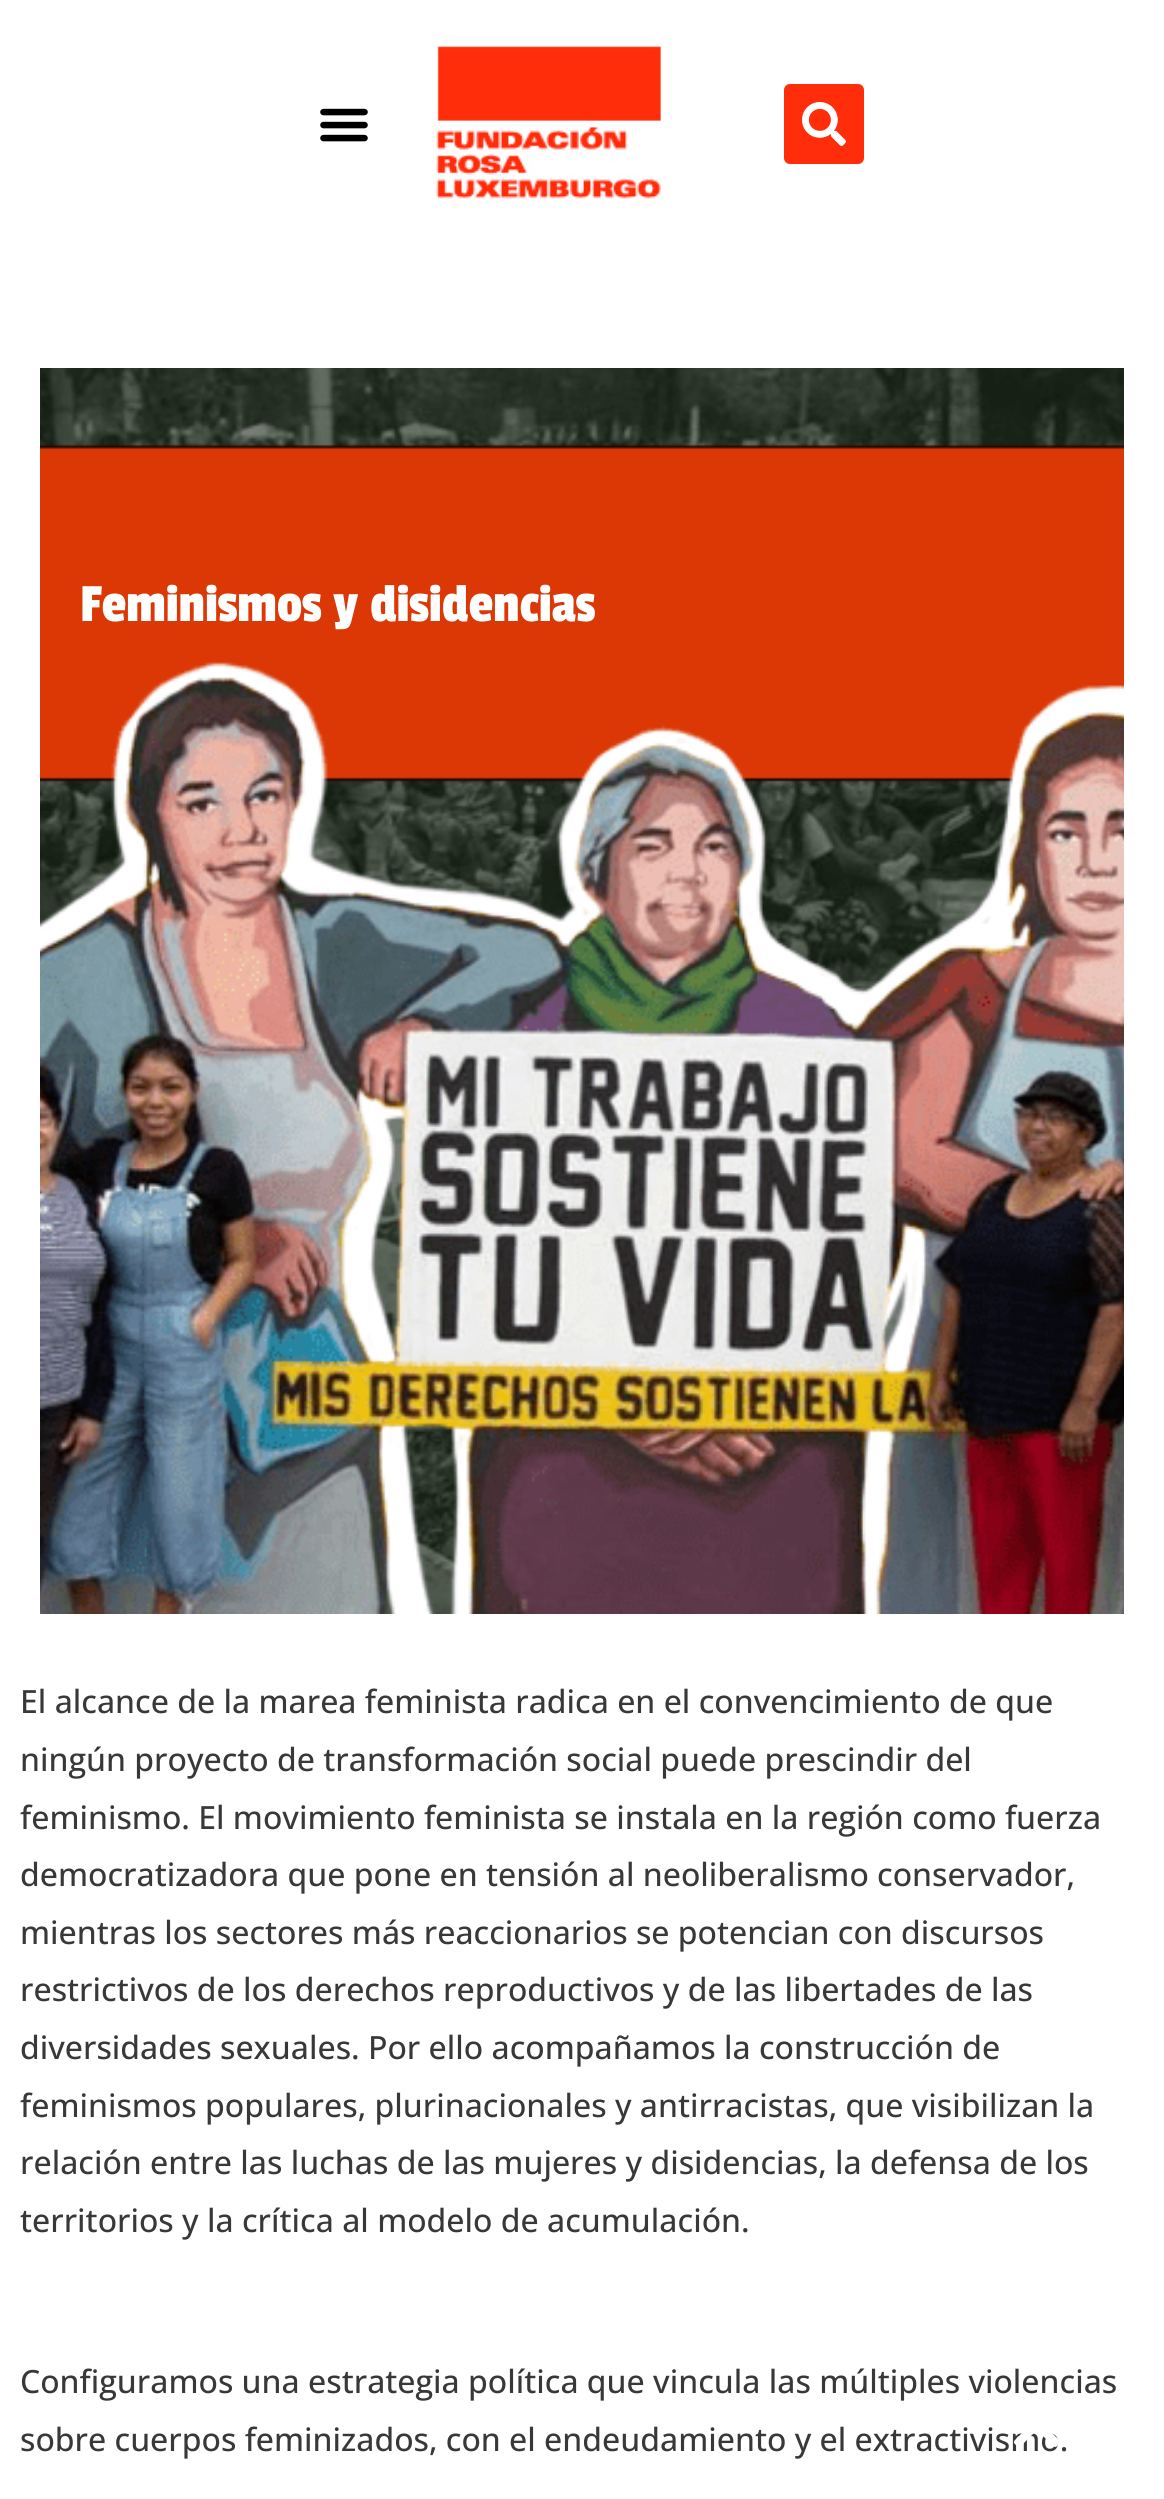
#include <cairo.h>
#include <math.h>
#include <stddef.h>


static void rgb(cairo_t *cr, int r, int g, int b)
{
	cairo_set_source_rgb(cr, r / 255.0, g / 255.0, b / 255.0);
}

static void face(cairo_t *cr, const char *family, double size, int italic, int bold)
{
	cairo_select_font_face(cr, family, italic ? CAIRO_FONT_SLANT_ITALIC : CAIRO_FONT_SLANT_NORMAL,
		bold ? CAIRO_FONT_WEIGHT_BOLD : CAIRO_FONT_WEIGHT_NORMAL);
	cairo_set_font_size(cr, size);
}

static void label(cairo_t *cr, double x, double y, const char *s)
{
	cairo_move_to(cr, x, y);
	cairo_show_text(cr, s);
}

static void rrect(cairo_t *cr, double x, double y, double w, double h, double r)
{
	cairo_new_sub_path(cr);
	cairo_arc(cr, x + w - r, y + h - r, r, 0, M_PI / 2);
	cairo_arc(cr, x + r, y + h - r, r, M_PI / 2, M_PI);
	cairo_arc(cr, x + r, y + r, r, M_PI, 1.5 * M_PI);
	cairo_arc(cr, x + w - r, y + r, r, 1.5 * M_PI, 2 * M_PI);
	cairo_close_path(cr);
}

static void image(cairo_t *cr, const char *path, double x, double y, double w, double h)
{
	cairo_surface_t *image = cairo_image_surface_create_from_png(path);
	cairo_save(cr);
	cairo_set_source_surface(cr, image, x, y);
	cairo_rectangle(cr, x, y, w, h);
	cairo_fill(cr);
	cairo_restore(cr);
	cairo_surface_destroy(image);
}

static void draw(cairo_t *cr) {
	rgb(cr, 255, 255, 255);
	cairo_paint(cr);
	image(cr, "image0.png", 320, 108, 48, 34);
	image(cr, "image1.png", 436, 46, 225, 153);
	rgb(cr, 255, 45, 9);
	rrect(cr, 784, 84, 80, 80, 6);
	cairo_fill(cr);
	image(cr, "image2.png", 802, 102, 44, 44);
	image(cr, "image3.png", 40, 368, 1084, 1246);
	face(cr, "Passion One", 56, 0, 0);
	rgb(cr, 255, 255, 255);
	label(cr, 80, 621, "Feminismos y disidencias");
	face(cr, "Open Sans Medium", 32, 0, 0);
	rgb(cr, 56, 56, 56);
	label(cr, 20, 1713, "El alcance de la marea feminista radica en el convencimiento de que");
	label(cr, 20, 1771, "ningún proyecto de transformación social puede prescindir del");
	label(cr, 20, 1829, "feminismo. El movimiento feminista se instala en la región como fuerza");
	label(cr, 20, 1886, "democratizadora que pone en tensión al neoliberalismo conservador,");
	label(cr, 20, 1944, "mientras los sectores más reaccionarios se potencian con discursos");
	label(cr, 20, 2001, "restrictivos de los derechos reproductivos y de las libertades de las");
	label(cr, 20, 2059, "diversidades sexuales. Por ello acompañamos la construcción de");
	label(cr, 20, 2117, "feminismos populares, plurinacionales y antirracistas, que visibilizan la");
	label(cr, 20, 2174, "relación entre las luchas de las mujeres y disidencias, la defensa de los");
	label(cr, 20, 2232, "territorios y la crítica al modelo de acumulación.");
	label(cr, 20, 2393, "Configuramos una estrategia política que vincula las múltiples violencias");
	label(cr, 20, 2451, "sobre cuerpos feminizados, con el endeudamiento y el extractivismo.");
	image(cr, "image4.png", 1014, 2433, 44, 14);
}

int main(void) {
	cairo_surface_t *surface = cairo_image_surface_create(CAIRO_FORMAT_RGB24, 1164, 2499);
	cairo_t *cr = cairo_create(surface);
	cairo_font_options_t *options = cairo_font_options_create();
	cairo_font_options_set_hint_metrics(options, CAIRO_HINT_METRICS_OFF);
	cairo_font_options_set_hint_style(options, CAIRO_HINT_STYLE_NONE);
	cairo_set_font_options(cr, options);
	cairo_set_miter_limit(cr, 4);
	draw(cr);
	cairo_surface_write_to_png(surface, "render.png");
	cairo_font_options_destroy(options);
	cairo_destroy(cr);
	cairo_surface_destroy(surface);
	return 0;
}
